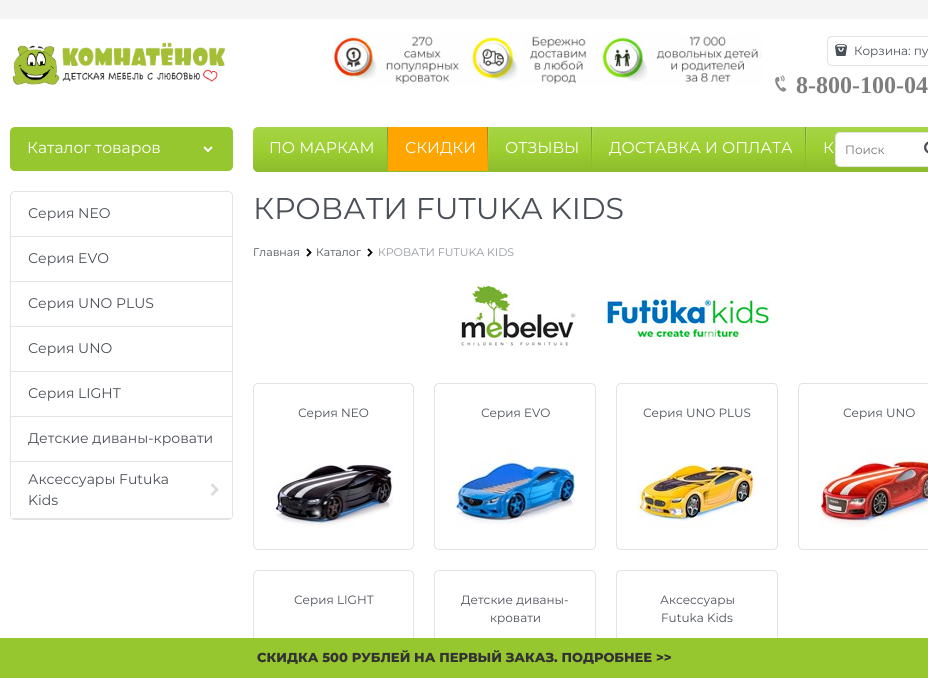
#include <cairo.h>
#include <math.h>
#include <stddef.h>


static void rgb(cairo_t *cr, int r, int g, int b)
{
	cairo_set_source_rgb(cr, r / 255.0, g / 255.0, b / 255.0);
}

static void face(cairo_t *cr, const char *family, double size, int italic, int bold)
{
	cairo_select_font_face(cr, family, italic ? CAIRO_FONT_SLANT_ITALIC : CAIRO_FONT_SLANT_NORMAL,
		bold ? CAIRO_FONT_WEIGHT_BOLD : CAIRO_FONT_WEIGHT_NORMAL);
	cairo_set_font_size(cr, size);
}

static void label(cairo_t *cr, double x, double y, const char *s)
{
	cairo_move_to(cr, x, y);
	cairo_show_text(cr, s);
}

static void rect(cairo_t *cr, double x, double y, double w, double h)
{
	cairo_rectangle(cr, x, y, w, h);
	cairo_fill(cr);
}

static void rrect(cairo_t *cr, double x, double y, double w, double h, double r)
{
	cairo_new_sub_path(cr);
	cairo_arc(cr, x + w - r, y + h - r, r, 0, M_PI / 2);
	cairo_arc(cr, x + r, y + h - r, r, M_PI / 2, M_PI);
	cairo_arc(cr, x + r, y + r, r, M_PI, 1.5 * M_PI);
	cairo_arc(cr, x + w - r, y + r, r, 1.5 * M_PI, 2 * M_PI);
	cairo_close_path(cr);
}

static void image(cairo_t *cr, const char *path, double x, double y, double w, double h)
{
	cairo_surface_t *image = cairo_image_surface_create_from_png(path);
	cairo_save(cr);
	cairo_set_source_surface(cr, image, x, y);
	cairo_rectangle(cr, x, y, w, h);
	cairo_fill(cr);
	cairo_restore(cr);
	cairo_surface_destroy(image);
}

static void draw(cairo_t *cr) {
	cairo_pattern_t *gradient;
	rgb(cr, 255, 255, 255);
	cairo_paint(cr);
	rgb(cr, 244, 244, 244);
	rect(cr, 0, 0, 928, 19);
	image(cr, "image0.png", 12, 42, 214, 43);
	image(cr, "image1.png", 333, 34, 429, 51);
	rrect(cr, 827.5, 36.5, 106, 29, 4.5);
	rgb(cr, 226, 227, 228);
	cairo_set_line_width(cr, 1);
	cairo_stroke(cr);
	image(cr, "image2.png", 835, 44, 12, 12);
	face(cr, "Montserrat", 12, 0, 0);
	rgb(cr, 75, 79, 88);
	label(cr, 854, 55, "Корзина: пу");
	image(cr, "image3.png", 775, 75, 12, 17);
	face(cr, "Liberation Serif", 24, 0, 1);
	rgb(cr, 125, 125, 125);
	label(cr, 796, 93, "8-800-100-04");
	rgb(cr, 150, 199, 47);
	rrect(cr, 10, 127, 223, 44, 5);
	cairo_fill(cr);
	face(cr, "Montserrat", 15.6, 0, 0);
	rgb(cr, 255, 255, 255);
	label(cr, 27, 153, "Каталог товаров");
	image(cr, "image4.png", 203, 146, 10, 7);
	gradient = cairo_pattern_create_linear(607, 127, 607, 172);
	cairo_pattern_add_color_stop_rgba(gradient, 0, 0.651, 0.831, 0.275, 1);
	cairo_pattern_add_color_stop_rgba(gradient, 0.5, 0.612, 0.812, 0.192, 1);
	cairo_pattern_add_color_stop_rgba(gradient, 1, 0.553, 0.733, 0.173, 1);
	cairo_set_source(cr, gradient);
	cairo_pattern_destroy(gradient);
	rrect(cr, 253, 127, 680, 45, 5);
	cairo_fill(cr);
	rgb(cr, 255, 255, 255);
	label(cr, 269, 153, "ПО МАРКАМ");
	gradient = cairo_pattern_create_linear(388, 127, 388, 171);
	cairo_pattern_add_color_stop_rgba(gradient, 0, 0.224, 0.224, 0.224, 0.39);
	cairo_pattern_add_color_stop_rgba(gradient, 0.17, 0.224, 0.224, 0.224, 0.33);
	cairo_pattern_add_color_stop_rgba(gradient, 0.61, 0.224, 0.224, 0.224, 0.12);
	cairo_pattern_add_color_stop_rgba(gradient, 0.96, 0.224, 0.224, 0.224, 0.01);
	cairo_pattern_add_color_stop_rgba(gradient, 0.98, 1, 1, 1, 0.01);
	cairo_pattern_add_color_stop_rgba(gradient, 1, 1, 1, 1, 0);
	cairo_set_source(cr, gradient);
	cairo_pattern_destroy(gradient);
	rect(cr, 387, 127, 1, 44);
	rgb(cr, 255, 165, 0);
	rect(cr, 388, 127, 99, 44);
	rgb(cr, 255, 255, 255);
	label(cr, 405, 153, "СКИДКИ");
	gradient = cairo_pattern_create_linear(489, 127, 489, 171);
	cairo_pattern_add_color_stop_rgba(gradient, 0, 1, 1, 1, 0.14);
	cairo_pattern_add_color_stop_rgba(gradient, 0.72, 1, 1, 1, 0.02);
	cairo_pattern_add_color_stop_rgba(gradient, 1, 1, 1, 1, 0);
	cairo_set_source(cr, gradient);
	cairo_pattern_destroy(gradient);
	rect(cr, 488, 127, 1, 31);
	gradient = cairo_pattern_create_linear(488, 127, 488, 171);
	cairo_pattern_add_color_stop_rgba(gradient, 0, 0.698, 0.482, 0.086, 1);
	cairo_pattern_add_color_stop_rgba(gradient, 0.17, 0.745, 0.506, 0.075, 1);
	cairo_pattern_add_color_stop_rgba(gradient, 0.61, 0.906, 0.596, 0.027, 1);
	cairo_pattern_add_color_stop_rgba(gradient, 0.96, 0.992, 0.643, 0.004, 1);
	cairo_pattern_add_color_stop_rgba(gradient, 0.98, 1, 0.651, 0.012, 1);
	cairo_pattern_add_color_stop_rgba(gradient, 1, 1, 0.647, 0, 1);
	cairo_set_source(cr, gradient);
	cairo_pattern_destroy(gradient);
	rect(cr, 487, 127, 1, 44);
	rgb(cr, 255, 255, 255);
	label(cr, 505, 153, "ОТЗЫВЫ");
	gradient = cairo_pattern_create_linear(593, 127, 593, 171);
	cairo_pattern_add_color_stop_rgba(gradient, 0, 1, 1, 1, 0.14);
	cairo_pattern_add_color_stop_rgba(gradient, 0.72, 1, 1, 1, 0.02);
	cairo_pattern_add_color_stop_rgba(gradient, 1, 1, 1, 1, 0);
	cairo_set_source(cr, gradient);
	cairo_pattern_destroy(gradient);
	rect(cr, 592, 127, 1, 31);
	gradient = cairo_pattern_create_linear(592, 127, 592, 171);
	cairo_pattern_add_color_stop_rgba(gradient, 0, 0.224, 0.224, 0.224, 0.39);
	cairo_pattern_add_color_stop_rgba(gradient, 0.17, 0.224, 0.224, 0.224, 0.33);
	cairo_pattern_add_color_stop_rgba(gradient, 0.61, 0.224, 0.224, 0.224, 0.12);
	cairo_pattern_add_color_stop_rgba(gradient, 0.96, 0.224, 0.224, 0.224, 0.01);
	cairo_pattern_add_color_stop_rgba(gradient, 0.98, 1, 1, 1, 0.01);
	cairo_pattern_add_color_stop_rgba(gradient, 1, 1, 1, 1, 0);
	cairo_set_source(cr, gradient);
	cairo_pattern_destroy(gradient);
	rect(cr, 591, 127, 1, 44);
	rgb(cr, 255, 255, 255);
	label(cr, 609, 153, "ДОСТАВКА И ОПЛАТА");
	gradient = cairo_pattern_create_linear(807, 127, 807, 171);
	cairo_pattern_add_color_stop_rgba(gradient, 0, 1, 1, 1, 0.14);
	cairo_pattern_add_color_stop_rgba(gradient, 0.72, 1, 1, 1, 0.02);
	cairo_pattern_add_color_stop_rgba(gradient, 1, 1, 1, 1, 0);
	cairo_set_source(cr, gradient);
	cairo_pattern_destroy(gradient);
	rect(cr, 806, 127, 1, 31);
	gradient = cairo_pattern_create_linear(806, 127, 806, 171);
	cairo_pattern_add_color_stop_rgba(gradient, 0, 0.224, 0.224, 0.224, 0.39);
	cairo_pattern_add_color_stop_rgba(gradient, 0.17, 0.224, 0.224, 0.224, 0.33);
	cairo_pattern_add_color_stop_rgba(gradient, 0.61, 0.224, 0.224, 0.224, 0.12);
	cairo_pattern_add_color_stop_rgba(gradient, 0.96, 0.224, 0.224, 0.224, 0.01);
	cairo_pattern_add_color_stop_rgba(gradient, 0.98, 1, 1, 1, 0.01);
	cairo_pattern_add_color_stop_rgba(gradient, 1, 1, 1, 1, 0);
	cairo_set_source(cr, gradient);
	cairo_pattern_destroy(gradient);
	rect(cr, 805, 127, 1, 44);
	rgb(cr, 255, 255, 255);
	label(cr, 823, 153, "К");
	rrect(cr, 835.5, 132.5, 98, 34, 4.5);
	cairo_fill_preserve(cr);
	rgb(cr, 226, 227, 228);
	cairo_stroke(cr);
	face(cr, "Montserrat", 12, 0, 0);
	rgb(cr, 117, 117, 117);
	label(cr, 845, 154, "Поиск");
	image(cr, "image5.png", 924, 141, 4, 13);
	rrect(cr, 10.5, 191.5, 222, 328, 4.5);
	rgb(cr, 226, 227, 228);
	cairo_stroke(cr);
	rect(cr, 11, 236, 221, 1);
	rgb(cr, 255, 255, 255);
	cairo_new_path(cr);
	cairo_move_to(cr, 16, 192);
	cairo_line_to(cr, 227, 192);
	cairo_curve_to(cr, 230, 192, 232, 194, 232, 197);
	cairo_line_to(cr, 232, 236);
	cairo_line_to(cr, 11, 236);
	cairo_line_to(cr, 11, 197);
	cairo_curve_to(cr, 11, 194, 13, 192, 16, 192);
	cairo_close_path(cr);
	cairo_fill(cr);
	face(cr, "Montserrat", 14, 0, 0);
	rgb(cr, 75, 79, 88);
	label(cr, 28, 218, "Серия NEO");
	rgb(cr, 226, 227, 228);
	rect(cr, 11, 281, 221, 1);
	rgb(cr, 75, 79, 88);
	label(cr, 28, 263, "Серия EVO");
	rgb(cr, 226, 227, 228);
	rect(cr, 11, 326, 221, 1);
	rgb(cr, 75, 79, 88);
	label(cr, 28, 308, "Серия UNO PLUS");
	rgb(cr, 226, 227, 228);
	rect(cr, 11, 371, 221, 1);
	rgb(cr, 75, 79, 88);
	label(cr, 28, 353, "Серия UNO");
	rgb(cr, 226, 227, 228);
	rect(cr, 11, 416, 221, 1);
	rgb(cr, 75, 79, 88);
	label(cr, 28, 398, "Серия LIGHT");
	rgb(cr, 226, 227, 228);
	rect(cr, 11, 461, 221, 1);
	rgb(cr, 75, 79, 88);
	label(cr, 28, 443, "Детские диваны-кровати");
	rgb(cr, 226, 227, 228);
	rect(cr, 11, 518, 221, 1);
	rgb(cr, 255, 255, 255);
	rect(cr, 11, 516, 221, 2);
	rgb(cr, 75, 79, 88);
	label(cr, 28, 484, "Аксессуары Futuka");
	label(cr, 28, 505, "Kids");
	image(cr, "image6.png", 210, 483, 9, 13);
	face(cr, "Montserrat", 30, 0, 0);
	label(cr, 253, 219, "КРОВАТИ FUTUKA KIDS");
	face(cr, "Montserrat", 11, 0, 0);
	label(cr, 253, 256, "Главная");
	image(cr, "image7.png", 306, 248, 6, 9);
	label(cr, 316, 256, "Каталог");
	image(cr, "image7.png", 367, 248, 6, 9);
	rgb(cr, 148, 150, 155);
	label(cr, 378, 256, "КРОВАТИ FUTUKA KIDS");
	image(cr, "image8.png", 458, 285, 312, 64);
	rrect(cr, 253.5, 383.5, 160, 166, 4.5);
	rgb(cr, 226, 227, 228);
	cairo_stroke(cr);
	face(cr, "Montserrat", 12, 0, 0);
	rgb(cr, 75, 79, 88);
	label(cr, 298, 417, "Серия NEO");
	image(cr, "image9.png", 274, 464, 119, 65);
	rrect(cr, 434.5, 383.5, 161, 166, 4.5);
	rgb(cr, 226, 227, 228);
	cairo_stroke(cr);
	rgb(cr, 75, 79, 88);
	label(cr, 481, 417, "Серия EVO");
	image(cr, "image10.png", 455, 449, 120, 80);
	rrect(cr, 616.5, 383.5, 161, 166, 4.5);
	rgb(cr, 226, 227, 228);
	cairo_stroke(cr);
	rgb(cr, 75, 79, 88);
	label(cr, 643, 417, "Серия UNO PLUS");
	image(cr, "image11.png", 637, 464, 120, 64);
	rrect(cr, 798.5, 383.5, 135, 166, 4.5);
	rgb(cr, 226, 227, 228);
	cairo_stroke(cr);
	rgb(cr, 75, 79, 88);
	label(cr, 843, 417, "Серия UNO");
	image(cr, "image12.png", 819, 449, 109, 80);
	rrect(cr, 253.5, 570.5, 160, 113, 4.5);
	rgb(cr, 226, 227, 228);
	cairo_stroke(cr);
	rgb(cr, 75, 79, 88);
	label(cr, 294, 604, "Серия LIGHT");
	rrect(cr, 434.5, 570.5, 161, 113, 4.5);
	rgb(cr, 226, 227, 228);
	cairo_stroke(cr);
	rgb(cr, 75, 79, 88);
	label(cr, 461, 604, "Детские диваны-");
	label(cr, 490, 622, "кровати");
	rrect(cr, 616.5, 570.5, 161, 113, 4.5);
	rgb(cr, 226, 227, 228);
	cairo_stroke(cr);
	rgb(cr, 75, 79, 88);
	label(cr, 660, 604, "Аксессуары");
	label(cr, 661, 622, "Futuka Kids");
	rgb(cr, 150, 199, 47);
	rect(cr, 0, 638, 928, 40);
	face(cr, "Montserrat ExtraBold", 13, 0, 0);
	rgb(cr, 51, 51, 51);
	label(cr, 257, 662, "СКИДКА 500 РУБЛЕЙ НА ПЕРВЫЙ ЗАКАЗ. ПОДРОБНЕЕ >>");
}

int main(void) {
	cairo_surface_t *surface = cairo_image_surface_create(CAIRO_FORMAT_RGB24, 928, 678);
	cairo_t *cr = cairo_create(surface);
	cairo_font_options_t *options = cairo_font_options_create();
	cairo_font_options_set_hint_metrics(options, CAIRO_HINT_METRICS_OFF);
	cairo_font_options_set_hint_style(options, CAIRO_HINT_STYLE_NONE);
	cairo_set_font_options(cr, options);
	cairo_set_miter_limit(cr, 4);
	draw(cr);
	cairo_surface_write_to_png(surface, "render.png");
	cairo_font_options_destroy(options);
	cairo_destroy(cr);
	cairo_surface_destroy(surface);
	return 0;
}
